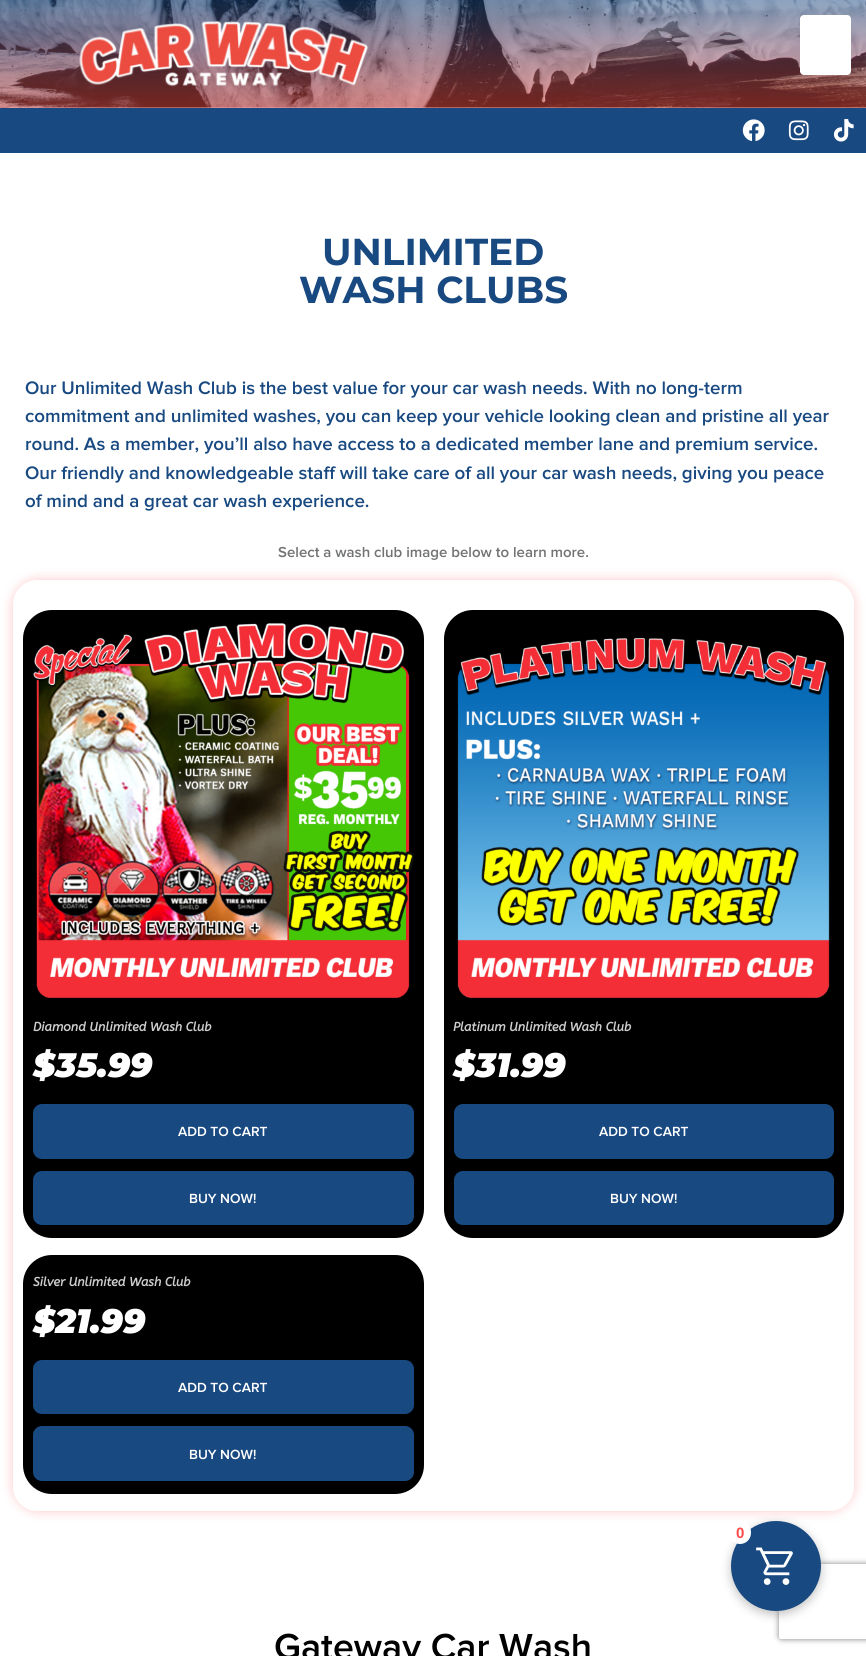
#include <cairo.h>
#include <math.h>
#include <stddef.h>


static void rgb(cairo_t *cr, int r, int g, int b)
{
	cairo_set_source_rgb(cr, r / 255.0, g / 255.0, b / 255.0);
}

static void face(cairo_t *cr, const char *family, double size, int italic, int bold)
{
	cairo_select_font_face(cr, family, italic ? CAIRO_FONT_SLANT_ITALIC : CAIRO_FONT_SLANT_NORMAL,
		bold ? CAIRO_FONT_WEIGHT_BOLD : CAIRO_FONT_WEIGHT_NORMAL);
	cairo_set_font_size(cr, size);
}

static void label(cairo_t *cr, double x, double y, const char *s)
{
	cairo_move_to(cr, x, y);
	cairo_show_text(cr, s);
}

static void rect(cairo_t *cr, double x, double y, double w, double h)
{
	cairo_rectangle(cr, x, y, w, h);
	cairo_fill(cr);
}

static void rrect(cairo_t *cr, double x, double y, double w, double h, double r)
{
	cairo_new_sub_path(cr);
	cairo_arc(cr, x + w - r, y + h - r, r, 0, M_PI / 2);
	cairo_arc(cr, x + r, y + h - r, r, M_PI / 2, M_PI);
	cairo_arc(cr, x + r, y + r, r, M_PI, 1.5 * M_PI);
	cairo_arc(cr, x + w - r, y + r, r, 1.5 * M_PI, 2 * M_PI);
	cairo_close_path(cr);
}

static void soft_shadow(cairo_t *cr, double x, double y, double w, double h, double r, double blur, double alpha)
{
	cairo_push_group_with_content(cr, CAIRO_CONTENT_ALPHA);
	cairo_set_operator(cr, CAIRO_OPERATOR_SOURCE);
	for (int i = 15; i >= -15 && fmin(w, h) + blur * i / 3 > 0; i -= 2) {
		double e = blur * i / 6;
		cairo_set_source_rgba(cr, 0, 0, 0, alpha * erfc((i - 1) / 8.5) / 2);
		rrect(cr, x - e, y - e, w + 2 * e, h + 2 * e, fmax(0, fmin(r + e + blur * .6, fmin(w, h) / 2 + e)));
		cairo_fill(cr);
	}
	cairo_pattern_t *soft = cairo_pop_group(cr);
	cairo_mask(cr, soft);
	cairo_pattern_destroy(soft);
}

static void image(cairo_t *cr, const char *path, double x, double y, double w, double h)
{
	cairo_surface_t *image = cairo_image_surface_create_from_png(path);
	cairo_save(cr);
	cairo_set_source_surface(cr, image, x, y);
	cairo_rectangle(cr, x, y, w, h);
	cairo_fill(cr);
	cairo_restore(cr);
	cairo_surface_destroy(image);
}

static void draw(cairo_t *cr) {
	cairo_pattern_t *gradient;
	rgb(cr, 255, 255, 255);
	cairo_paint(cr);
	image(cr, "image0.png", 0, 0, 866, 108);
	gradient = cairo_pattern_create_linear(433, 0, 433, 108);
	cairo_pattern_add_color_stop_rgba(gradient, 0, 0.098, 0.286, 0.506, 0.5);
	cairo_pattern_add_color_stop_rgba(gradient, 1, 0.925, 0.298, 0.255, 0.5);
	cairo_set_source(cr, gradient);
	cairo_pattern_destroy(gradient);
	rect(cr, 0, 0, 866, 108);
	image(cr, "image1.png", 79, 21, 290, 66);
	rgb(cr, 255, 255, 255);
	rrect(cr, 800, 15, 51, 60, 4);
	cairo_fill(cr);
	rgb(cr, 25, 73, 129);
	rect(cr, 0, 108, 866, 45);
	image(cr, "image2.png", 742, 119, 23, 22);
	image(cr, "image3.png", 788, 120, 21, 21);
	image(cr, "image4.png", 833, 119, 21, 23);
	face(cr, "Montserrat", 37.5, 0, 1);
	label(cr, 322, 265, "UNLIMITED");
	label(cr, 299, 303, "WASH CLUBS");
	face(cr, "Proxima Nova SemiBold", 18.75, 0, 0);
	label(cr, 25, 394, "Our Unlimited Wash Club is the best value for your car wash needs. With no long-term");
	label(cr, 25, 422, "commitment and unlimited washes, you can keep your vehicle looking clean and pristine all year");
	label(cr, 25, 450, "round. As a member, you’ll also have access to a dedicated member lane and premium service.");
	label(cr, 25, 479, "Our friendly and knowledgeable staff will take care of all your car wash needs, giving you peace");
	label(cr, 25, 507, "of mind and a great car wash experience.");
	face(cr, "Proxima Nova SemiBold", 15, 0, 0);
	rgb(cr, 114, 116, 116);
	label(cr, 278, 557, "Select a wash club image below to learn more.");
	cairo_save(cr);
	cairo_set_fill_rule(cr, CAIRO_FILL_RULE_EVEN_ODD);
	cairo_new_path(cr);
	cairo_move_to(cr, 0, 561);
	cairo_line_to(cr, 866, 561);
	cairo_line_to(cr, 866, 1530);
	cairo_line_to(cr, 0, 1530);
	cairo_close_path(cr);
	cairo_move_to(cr, 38, 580);
	cairo_line_to(cr, 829, 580);
	cairo_curve_to(cr, 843, 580, 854, 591, 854, 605);
	cairo_line_to(cr, 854, 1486);
	cairo_curve_to(cr, 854, 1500, 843, 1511, 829, 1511);
	cairo_line_to(cr, 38, 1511);
	cairo_curve_to(cr, 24, 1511, 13, 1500, 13, 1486);
	cairo_line_to(cr, 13, 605);
	cairo_curve_to(cr, 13, 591, 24, 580, 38, 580);
	cairo_close_path(cr);
	cairo_clip(cr);
	rgb(cr, 255, 0, 0);
	soft_shadow(cr, 13, 580, 841, 931, 25, 6, 0.22);
	cairo_restore(cr);
	rgb(cr, 0, 0, 0);
	rrect(cr, 23, 610, 401, 628, 29);
	cairo_fill(cr);
	image(cr, "image5.png", 33, 623, 381, 375);
	face(cr, "ABeeZee", 12.5, 1, 1);
	rgb(cr, 206, 206, 206);
	label(cr, 33, 1031, "Diamond Unlimited Wash Club");
	face(cr, "Montserrat Black", 34, 1, 0);
	rgb(cr, 255, 255, 255);
	label(cr, 33, 1077, "$35.99");
	rgb(cr, 25, 73, 129);
	rrect(cr, 33, 1104, 381, 55, 9);
	cairo_fill(cr);
	face(cr, "Proxima Nova SemiBold", 13.75, 0, 0);
	rgb(cr, 255, 255, 255);
	label(cr, 178, 1136, "ADD TO CART");
	rgb(cr, 25, 73, 129);
	rrect(cr, 33, 1171, 381, 54, 9);
	cairo_fill(cr);
	rgb(cr, 255, 255, 255);
	label(cr, 189, 1203, "BUY NOW!");
	rgb(cr, 0, 0, 0);
	rrect(cr, 444, 610, 400, 628, 29);
	cairo_fill(cr);
	image(cr, "image6.png", 457, 638, 373, 360);
	face(cr, "ABeeZee", 12.5, 1, 1);
	rgb(cr, 206, 206, 206);
	label(cr, 453, 1031, "Platinum Unlimited Wash Club");
	face(cr, "Montserrat Black", 34, 1, 0);
	rgb(cr, 255, 255, 255);
	label(cr, 453, 1077, "$31.99");
	rgb(cr, 25, 73, 129);
	rrect(cr, 454, 1104, 380, 55, 9);
	cairo_fill(cr);
	face(cr, "Proxima Nova SemiBold", 13.75, 0, 0);
	rgb(cr, 255, 255, 255);
	label(cr, 599, 1136, "ADD TO CART");
	rgb(cr, 25, 73, 129);
	rrect(cr, 454, 1171, 380, 54, 9);
	cairo_fill(cr);
	rgb(cr, 255, 255, 255);
	label(cr, 610, 1203, "BUY NOW!");
	rgb(cr, 0, 0, 0);
	rrect(cr, 23, 1255, 401, 239, 29);
	cairo_fill(cr);
	face(cr, "ABeeZee", 12.5, 1, 1);
	rgb(cr, 206, 206, 206);
	label(cr, 33, 1286, "Silver Unlimited Wash Club");
	face(cr, "Montserrat Black", 34, 1, 0);
	rgb(cr, 255, 255, 255);
	label(cr, 33, 1333, "$21.99");
	rgb(cr, 25, 73, 129);
	rrect(cr, 33, 1360, 381, 54, 9);
	cairo_fill(cr);
	face(cr, "Proxima Nova SemiBold", 13.75, 0, 0);
	rgb(cr, 255, 255, 255);
	label(cr, 178, 1392, "ADD TO CART");
	rgb(cr, 25, 73, 129);
	rrect(cr, 33, 1426, 381, 55, 9);
	cairo_fill(cr);
	rgb(cr, 255, 255, 255);
	label(cr, 189, 1459, "BUY NOW!");
	rgb(cr, 0, 0, 0);
	soft_shadow(cr, 731, 1524, 90, 90, 45, 5, 0.25);
	cairo_save(cr);
	cairo_set_fill_rule(cr, CAIRO_FILL_RULE_EVEN_ODD);
	cairo_new_path(cr);
	cairo_move_to(cr, 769, 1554);
	cairo_line_to(cr, 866, 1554);
	cairo_line_to(cr, 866, 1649);
	cairo_line_to(cr, 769, 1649);
	cairo_close_path(cr);
	cairo_move_to(cr, 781.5, 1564);
	cairo_line_to(cr, 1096.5, 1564);
	cairo_curve_to(cr, 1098, 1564, 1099, 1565, 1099, 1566.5);
	cairo_line_to(cr, 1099, 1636.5);
	cairo_curve_to(cr, 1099, 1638, 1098, 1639, 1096.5, 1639);
	cairo_line_to(cr, 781.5, 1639);
	cairo_curve_to(cr, 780, 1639, 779, 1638, 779, 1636.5);
	cairo_line_to(cr, 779, 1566.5);
	cairo_curve_to(cr, 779, 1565, 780, 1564, 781.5, 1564);
	cairo_close_path(cr);
	cairo_clip(cr);
	rgb(cr, 128, 128, 128);
	soft_shadow(cr, 779, 1564, 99, 75, 2.5, 3, 1);
	cairo_restore(cr);
	rgb(cr, 25, 73, 129);
	cairo_arc(cr, 776, 1566, 45, 0, 2 * M_PI);
	cairo_fill(cr);
	image(cr, "image7.png", 756, 1547, 37, 38);
	rgb(cr, 255, 255, 255);
	rrect(cr, 729, 1521, 22, 23, 11);
	cairo_fill(cr);
	face(cr, "Liberation Sans", 15, 0, 1);
	rgb(cr, 250, 74, 74);
	label(cr, 736, 1538, "0");
	face(cr, "Proxima Nova SemiBold", 37.5, 0, 0);
	rgb(cr, 0, 0, 0);
	label(cr, 274, 1659, "Gateway Car Wash");
}

int main(void) {
	cairo_surface_t *surface = cairo_image_surface_create(CAIRO_FORMAT_RGB24, 866, 1656);
	cairo_t *cr = cairo_create(surface);
	cairo_font_options_t *options = cairo_font_options_create();
	cairo_font_options_set_hint_metrics(options, CAIRO_HINT_METRICS_OFF);
	cairo_font_options_set_hint_style(options, CAIRO_HINT_STYLE_NONE);
	cairo_set_font_options(cr, options);
	cairo_set_miter_limit(cr, 4);
	draw(cr);
	cairo_surface_write_to_png(surface, "render.png");
	cairo_font_options_destroy(options);
	cairo_destroy(cr);
	cairo_surface_destroy(surface);
	return 0;
}
